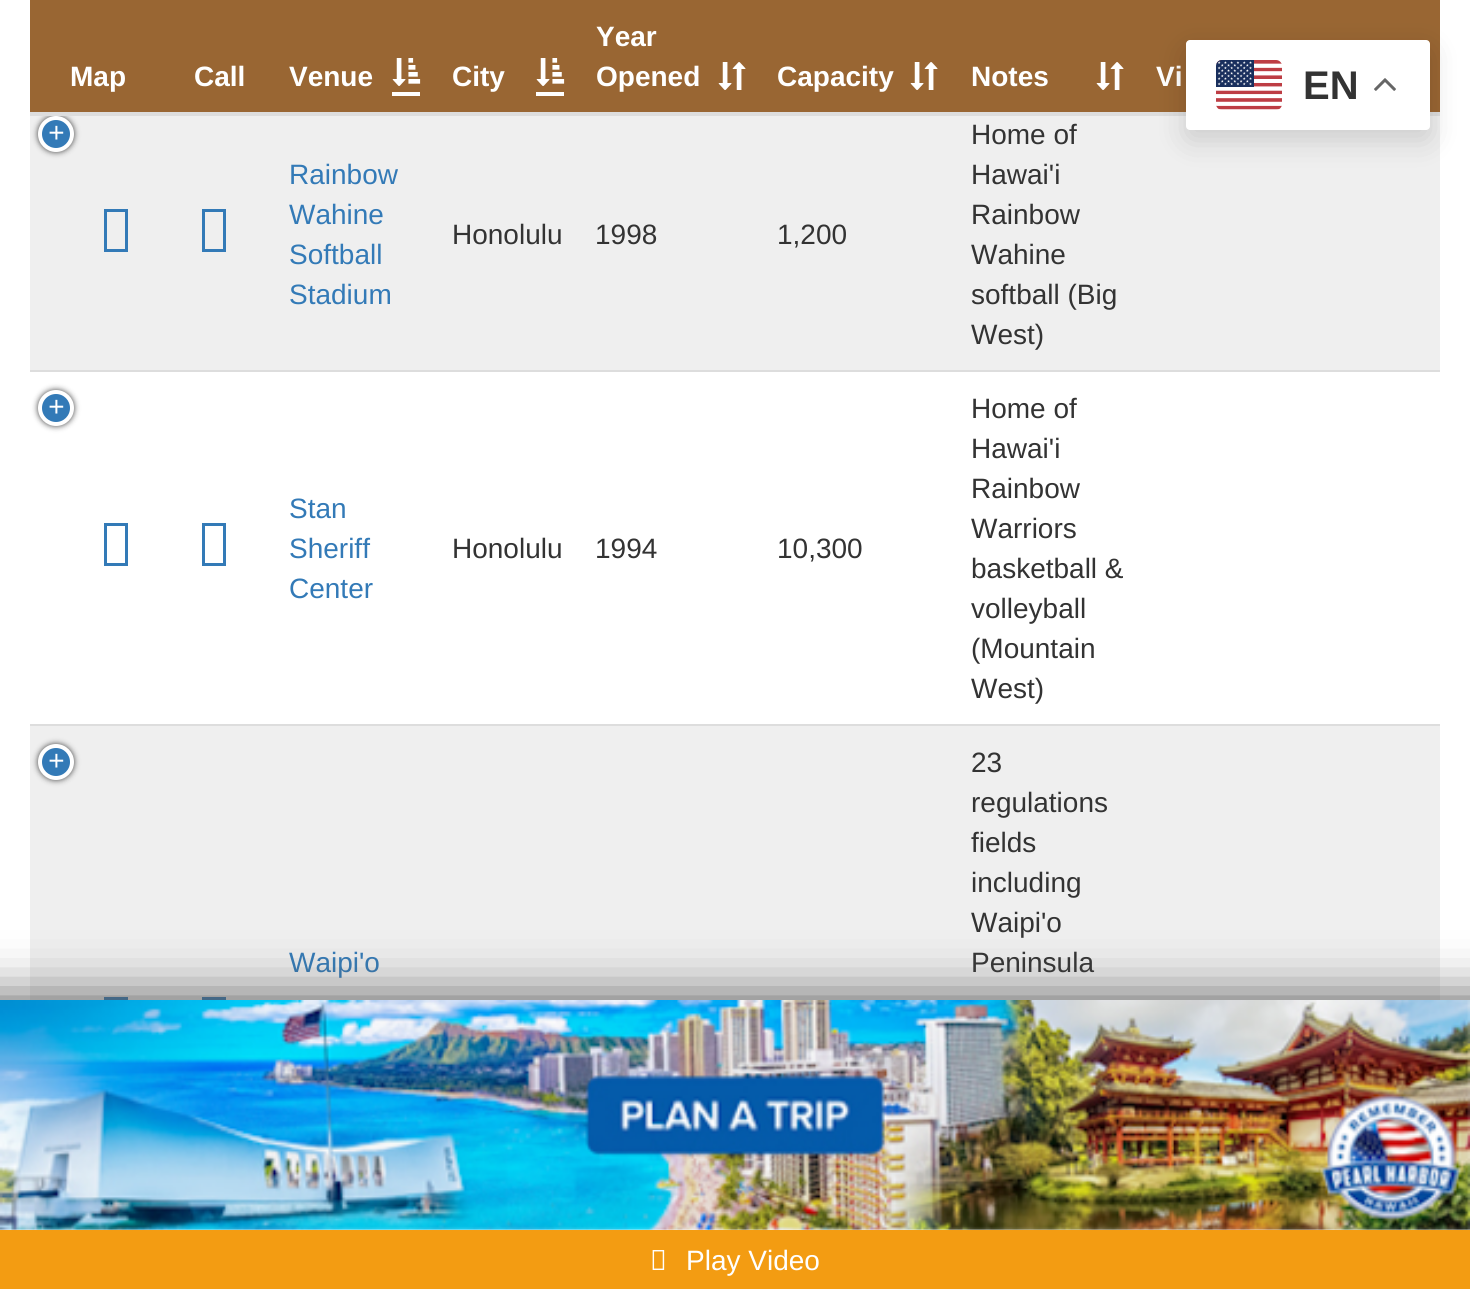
#include <cairo.h>
#include <math.h>
#include <stddef.h>


static void rgb(cairo_t *cr, int r, int g, int b)
{
	cairo_set_source_rgb(cr, r / 255.0, g / 255.0, b / 255.0);
}

static void face(cairo_t *cr, const char *family, double size, int italic, int bold)
{
	cairo_select_font_face(cr, family, italic ? CAIRO_FONT_SLANT_ITALIC : CAIRO_FONT_SLANT_NORMAL,
		bold ? CAIRO_FONT_WEIGHT_BOLD : CAIRO_FONT_WEIGHT_NORMAL);
	cairo_set_font_size(cr, size);
}

static void label(cairo_t *cr, double x, double y, const char *s)
{
	cairo_move_to(cr, x, y);
	cairo_show_text(cr, s);
}

static void rect(cairo_t *cr, double x, double y, double w, double h)
{
	cairo_rectangle(cr, x, y, w, h);
	cairo_fill(cr);
}

static void rrect(cairo_t *cr, double x, double y, double w, double h, double r)
{
	cairo_new_sub_path(cr);
	cairo_arc(cr, x + w - r, y + h - r, r, 0, M_PI / 2);
	cairo_arc(cr, x + r, y + h - r, r, M_PI / 2, M_PI);
	cairo_arc(cr, x + r, y + r, r, M_PI, 1.5 * M_PI);
	cairo_arc(cr, x + w - r, y + r, r, 1.5 * M_PI, 2 * M_PI);
	cairo_close_path(cr);
}

static void soft_shadow(cairo_t *cr, double x, double y, double w, double h, double r, double blur, double alpha)
{
	cairo_push_group_with_content(cr, CAIRO_CONTENT_ALPHA);
	cairo_set_operator(cr, CAIRO_OPERATOR_SOURCE);
	for (int i = 15; i >= -15 && fmin(w, h) + blur * i / 3 > 0; i -= 2) {
		double e = blur * i / 6;
		cairo_set_source_rgba(cr, 0, 0, 0, alpha * erfc((i - 1) / 8.5) / 2);
		rrect(cr, x - e, y - e, w + 2 * e, h + 2 * e, fmax(0, fmin(r + e + blur * .6, fmin(w, h) / 2 + e)));
		cairo_fill(cr);
	}
	cairo_pattern_t *soft = cairo_pop_group(cr);
	cairo_mask(cr, soft);
	cairo_pattern_destroy(soft);
}

static void image(cairo_t *cr, const char *path, double x, double y, double w, double h)
{
	cairo_surface_t *image = cairo_image_surface_create_from_png(path);
	cairo_save(cr);
	cairo_set_source_surface(cr, image, x, y);
	cairo_rectangle(cr, x, y, w, h);
	cairo_fill(cr);
	cairo_restore(cr);
	cairo_surface_destroy(image);
}

static void draw(cairo_t *cr) {
	rgb(cr, 255, 255, 255);
	cairo_paint(cr);
	rgb(cr, 239, 239, 239);
	rect(cr, 30, 116, 1410, 254);
	rgb(cr, 68, 68, 68);
	soft_shadow(cr, 38, 116, 36, 36, 18, 3, 1);
	rgb(cr, 153, 102, 51);
	rect(cr, 30, 0, 1410, 112);
	rgb(cr, 221, 221, 221);
	rect(cr, 30, 112, 1156, 4);
	face(cr, "Liberation Sans", 28, 0, 1);
	rgb(cr, 255, 255, 255);
	label(cr, 70, 86, "Map");
	label(cr, 194, 86, "Call");
	label(cr, 289, 86, "Venue");
	rect(cr, 392, 92, 28, 4);
	image(cr, "image0.png", 392, 58, 29, 28);
	label(cr, 452, 86, "City");
	rect(cr, 536, 92, 28, 4);
	image(cr, "image0.png", 536, 58, 29, 28);
	label(cr, 596, 46, "Year");
	label(cr, 596, 86, "Opened");
	image(cr, "image1.png", 718, 62, 28, 28);
	label(cr, 777, 86, "Capacity");
	image(cr, "image1.png", 910, 62, 28, 28);
	label(cr, 971, 86, "Notes");
	image(cr, "image1.png", 1096, 62, 28, 28);
	label(cr, 1156, 86, "Vi");
	rgb(cr, 221, 221, 221);
	rect(cr, 1430, 112, 10, 4);
	rgb(cr, 0, 0, 0);
	soft_shadow(cr, 1186, 50, 244, 90, 4, 15, 0.15);
	rgb(cr, 255, 255, 255);
	rrect(cr, 1186, 40, 244, 90, 4);
	cairo_fill(cr);
	image(cr, "image2.png", 1216, 60, 66, 50);
	face(cr, "Liberation Sans", 40, 0, 1);
	rgb(cr, 51, 51, 51);
	label(cr, 1303, 99, "EN");
	image(cr, "image3.png", 1374, 78, 22, 13);
	rgb(cr, 51, 122, 183);
	cairo_arc(cr, 56, 134, 16, 0, 2 * M_PI);
	cairo_fill_preserve(cr);
	rgb(cr, 255, 255, 255);
	cairo_set_line_width(cr, 4);
	cairo_stroke(cr);
	face(cr, "Liberation Mono", 28, 0, 0);
	label(cr, 48, 142, "+");
	rgb(cr, 51, 122, 183);
	cairo_new_path(cr);
	cairo_move_to(cr, 104, 252);
	cairo_line_to(cr, 104, 209);
	cairo_line_to(cr, 128, 209);
	cairo_line_to(cr, 128, 252);
	cairo_close_path(cr);
	cairo_move_to(cr, 107, 249);
	cairo_line_to(cr, 125, 249);
	cairo_line_to(cr, 125, 212);
	cairo_line_to(cr, 107, 212);
	cairo_close_path(cr);
	cairo_fill(cr);
	face(cr, "Liberation Sans", 28, 0, 0);
	rgb(cr, 51, 51, 51);
	label(cr, 971, 144, "Home of");
	label(cr, 971, 184, "Hawai'i");
	label(cr, 971, 224, "Rainbow");
	label(cr, 971, 264, "Wahine");
	label(cr, 971, 304, "softball (Big");
	label(cr, 971, 344, "West)");
	rgb(cr, 51, 122, 183);
	cairo_new_path(cr);
	cairo_move_to(cr, 202, 252);
	cairo_line_to(cr, 202, 209);
	cairo_line_to(cr, 226, 209);
	cairo_line_to(cr, 226, 252);
	cairo_close_path(cr);
	cairo_move_to(cr, 205, 249);
	cairo_line_to(cr, 223, 249);
	cairo_line_to(cr, 223, 212);
	cairo_line_to(cr, 205, 212);
	cairo_close_path(cr);
	cairo_fill(cr);
	label(cr, 289, 184, "Rainbow");
	label(cr, 289, 224, "Wahine");
	label(cr, 289, 264, "Softball");
	label(cr, 289, 304, "Stadium");
	rgb(cr, 51, 51, 51);
	label(cr, 452, 244, "Honolulu");
	label(cr, 595, 244, "1998");
	label(cr, 777, 244, "1,200");
	rgb(cr, 221, 221, 221);
	rect(cr, 30, 370, 1410, 2);
	rgb(cr, 51, 122, 183);
	cairo_new_path(cr);
	cairo_move_to(cr, 202, 566);
	cairo_line_to(cr, 202, 523);
	cairo_line_to(cr, 226, 523);
	cairo_line_to(cr, 226, 566);
	cairo_close_path(cr);
	cairo_move_to(cr, 205, 563);
	cairo_line_to(cr, 223, 563);
	cairo_line_to(cr, 223, 526);
	cairo_line_to(cr, 205, 526);
	cairo_close_path(cr);
	cairo_fill(cr);
	rgb(cr, 68, 68, 68);
	soft_shadow(cr, 38, 390, 36, 36, 18, 3, 1);
	rgb(cr, 51, 122, 183);
	cairo_arc(cr, 56, 408, 16, 0, 2 * M_PI);
	cairo_fill_preserve(cr);
	rgb(cr, 255, 255, 255);
	cairo_stroke(cr);
	face(cr, "Liberation Mono", 28, 0, 0);
	label(cr, 48, 416, "+");
	rgb(cr, 51, 122, 183);
	cairo_new_path(cr);
	cairo_move_to(cr, 104, 566);
	cairo_line_to(cr, 104, 523);
	cairo_line_to(cr, 128, 523);
	cairo_line_to(cr, 128, 566);
	cairo_close_path(cr);
	cairo_move_to(cr, 107, 563);
	cairo_line_to(cr, 125, 563);
	cairo_line_to(cr, 125, 526);
	cairo_line_to(cr, 107, 526);
	cairo_close_path(cr);
	cairo_fill(cr);
	face(cr, "Liberation Sans", 28, 0, 0);
	rgb(cr, 51, 51, 51);
	label(cr, 971, 418, "Home of");
	label(cr, 971, 458, "Hawai'i");
	label(cr, 971, 498, "Rainbow");
	label(cr, 971, 538, "Warriors");
	label(cr, 971, 578, "basketball &");
	label(cr, 971, 618, "volleyball");
	label(cr, 971, 658, "(Mountain");
	label(cr, 971, 698, "West)");
	rgb(cr, 51, 122, 183);
	label(cr, 289, 518, "Stan");
	label(cr, 289, 558, "Sheriff");
	label(cr, 289, 598, "Center");
	rgb(cr, 51, 51, 51);
	label(cr, 452, 558, "Honolulu");
	label(cr, 595, 558, "1994");
	label(cr, 777, 558, "10,300");
	rgb(cr, 239, 239, 239);
	rect(cr, 30, 726, 1410, 274);
	rgb(cr, 221, 221, 221);
	rect(cr, 30, 724, 1410, 2);
	rgb(cr, 51, 122, 183);
	cairo_new_path(cr);
	cairo_move_to(cr, 202, 1040);
	cairo_line_to(cr, 202, 997);
	cairo_line_to(cr, 226, 997);
	cairo_line_to(cr, 226, 1040);
	cairo_close_path(cr);
	cairo_move_to(cr, 205, 1037);
	cairo_line_to(cr, 223, 1037);
	cairo_line_to(cr, 223, 1000);
	cairo_line_to(cr, 205, 1000);
	cairo_close_path(cr);
	cairo_fill(cr);
	rgb(cr, 68, 68, 68);
	soft_shadow(cr, 38, 744, 36, 36, 18, 3, 1);
	rgb(cr, 51, 122, 183);
	cairo_arc(cr, 56, 762, 16, 0, 2 * M_PI);
	cairo_fill_preserve(cr);
	rgb(cr, 255, 255, 255);
	cairo_stroke(cr);
	face(cr, "Liberation Mono", 28, 0, 0);
	label(cr, 48, 770, "+");
	rgb(cr, 51, 122, 183);
	cairo_new_path(cr);
	cairo_move_to(cr, 104, 1040);
	cairo_line_to(cr, 104, 997);
	cairo_line_to(cr, 128, 997);
	cairo_line_to(cr, 128, 1040);
	cairo_close_path(cr);
	cairo_move_to(cr, 107, 1037);
	cairo_line_to(cr, 125, 1037);
	cairo_line_to(cr, 125, 1000);
	cairo_line_to(cr, 107, 1000);
	cairo_close_path(cr);
	cairo_fill(cr);
	face(cr, "Liberation Sans", 28, 0, 0);
	rgb(cr, 51, 51, 51);
	label(cr, 971, 772, "23");
	label(cr, 971, 812, "regulations");
	label(cr, 971, 852, "fields");
	label(cr, 971, 892, "including");
	label(cr, 971, 932, "Waipi'o");
	label(cr, 971, 972, "Peninsula");
	rgb(cr, 51, 122, 183);
	label(cr, 289, 972, "Waipi'o");
	rgb(cr, 85, 85, 85);
	soft_shadow(cr, -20, 1000, 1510, 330, 0, 28, 1);
	rgb(cr, 255, 255, 255);
	rect(cr, 0, 1229, 1470, 1);
	image(cr, "image4.png", 0, 1000, 1470, 230);
	rgb(cr, 243, 156, 18);
	rect(cr, 0, 1230, 1470, 59);
	image(cr, "image5.png", 652, 1250, 13, 20);
	rgb(cr, 255, 255, 255);
	label(cr, 686, 1270, "Play Video");
}

int main(void) {
	cairo_surface_t *surface = cairo_image_surface_create(CAIRO_FORMAT_RGB24, 1470, 1289);
	cairo_t *cr = cairo_create(surface);
	cairo_font_options_t *options = cairo_font_options_create();
	cairo_font_options_set_hint_metrics(options, CAIRO_HINT_METRICS_OFF);
	cairo_font_options_set_hint_style(options, CAIRO_HINT_STYLE_NONE);
	cairo_set_font_options(cr, options);
	cairo_set_miter_limit(cr, 4);
	draw(cr);
	cairo_surface_write_to_png(surface, "render.png");
	cairo_font_options_destroy(options);
	cairo_destroy(cr);
	cairo_surface_destroy(surface);
	return 0;
}
